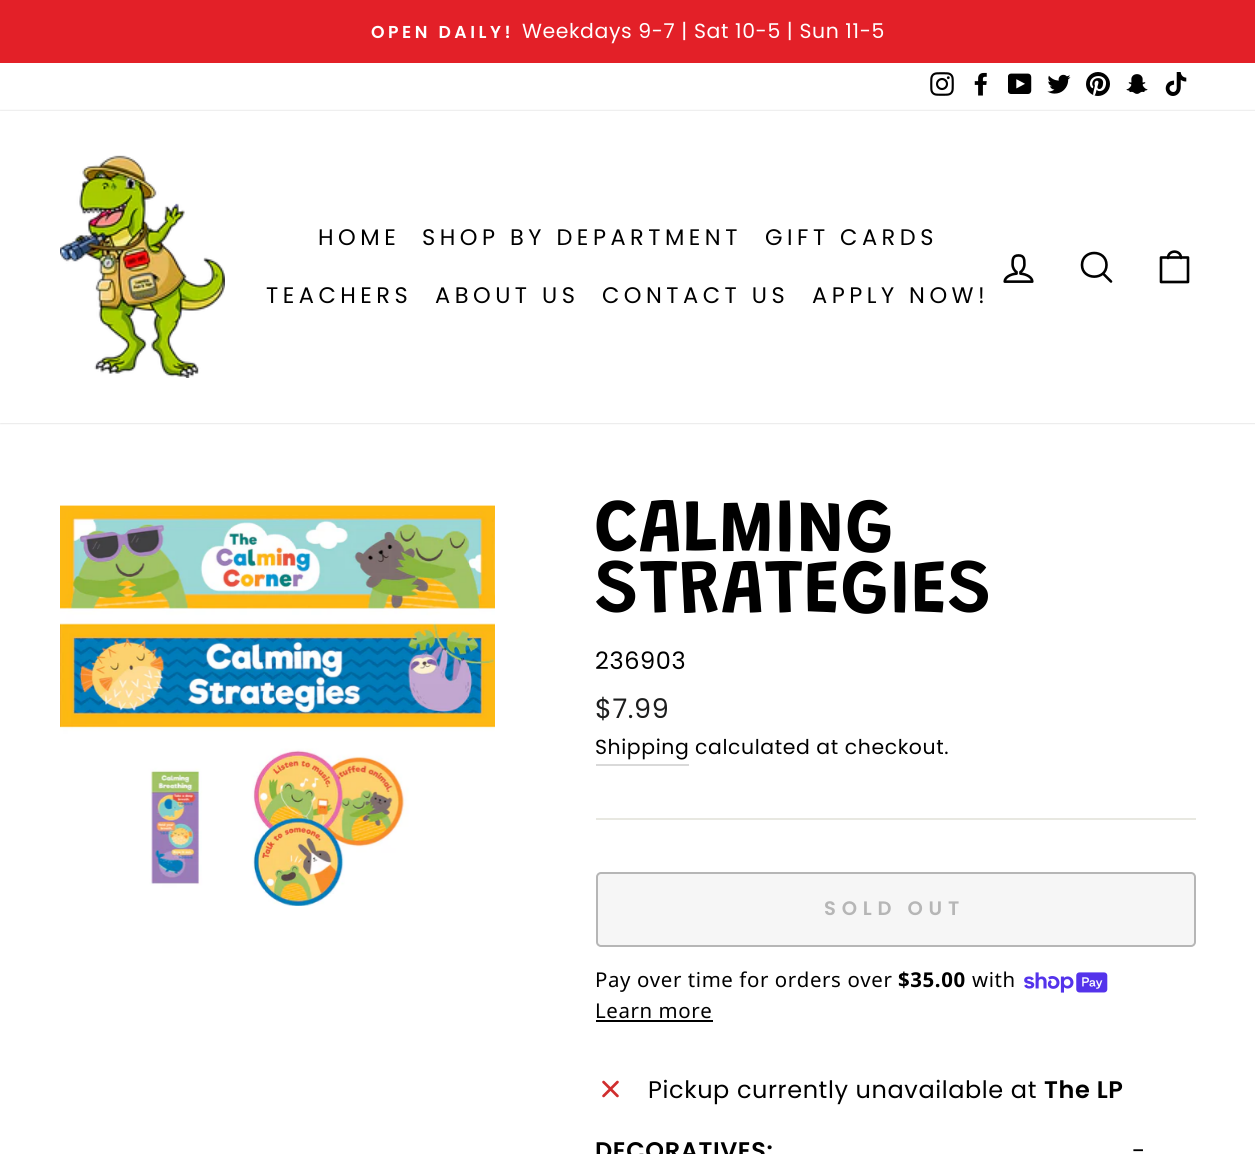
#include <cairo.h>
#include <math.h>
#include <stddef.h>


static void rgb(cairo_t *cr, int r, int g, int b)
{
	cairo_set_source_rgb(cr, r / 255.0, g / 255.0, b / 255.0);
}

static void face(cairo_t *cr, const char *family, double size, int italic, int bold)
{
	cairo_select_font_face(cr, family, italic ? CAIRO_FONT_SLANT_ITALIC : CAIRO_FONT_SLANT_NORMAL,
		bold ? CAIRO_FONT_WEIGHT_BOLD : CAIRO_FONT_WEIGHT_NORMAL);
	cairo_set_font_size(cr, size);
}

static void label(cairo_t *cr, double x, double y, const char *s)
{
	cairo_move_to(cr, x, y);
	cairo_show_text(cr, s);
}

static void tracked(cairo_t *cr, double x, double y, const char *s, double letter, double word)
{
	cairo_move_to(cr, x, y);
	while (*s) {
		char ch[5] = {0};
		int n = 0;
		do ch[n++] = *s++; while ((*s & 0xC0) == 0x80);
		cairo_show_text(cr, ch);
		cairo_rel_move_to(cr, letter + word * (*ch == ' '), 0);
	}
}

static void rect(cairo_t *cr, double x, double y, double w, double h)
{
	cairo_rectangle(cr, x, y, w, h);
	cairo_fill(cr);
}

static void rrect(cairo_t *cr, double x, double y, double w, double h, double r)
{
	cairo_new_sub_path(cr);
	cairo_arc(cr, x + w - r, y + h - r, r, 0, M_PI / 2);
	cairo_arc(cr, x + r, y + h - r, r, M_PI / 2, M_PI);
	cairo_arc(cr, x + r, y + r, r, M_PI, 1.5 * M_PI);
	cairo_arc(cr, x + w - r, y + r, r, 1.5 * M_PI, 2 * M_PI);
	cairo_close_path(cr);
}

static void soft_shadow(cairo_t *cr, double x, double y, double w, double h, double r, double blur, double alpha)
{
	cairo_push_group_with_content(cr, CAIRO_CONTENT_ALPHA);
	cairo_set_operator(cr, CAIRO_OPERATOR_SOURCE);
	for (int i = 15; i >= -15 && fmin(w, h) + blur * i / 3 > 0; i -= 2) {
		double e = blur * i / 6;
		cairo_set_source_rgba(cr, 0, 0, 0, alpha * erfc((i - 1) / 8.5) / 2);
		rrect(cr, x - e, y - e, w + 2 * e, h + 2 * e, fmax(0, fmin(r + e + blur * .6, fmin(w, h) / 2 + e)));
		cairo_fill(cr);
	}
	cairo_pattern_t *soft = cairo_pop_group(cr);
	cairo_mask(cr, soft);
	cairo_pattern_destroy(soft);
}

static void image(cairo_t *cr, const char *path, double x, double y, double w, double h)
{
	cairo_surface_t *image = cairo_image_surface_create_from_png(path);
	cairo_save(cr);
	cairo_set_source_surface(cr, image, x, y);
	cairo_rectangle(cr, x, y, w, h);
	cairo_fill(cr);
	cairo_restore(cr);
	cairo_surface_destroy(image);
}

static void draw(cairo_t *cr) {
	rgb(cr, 255, 255, 255);
	cairo_paint(cr);
	rgb(cr, 227, 32, 40);
	rect(cr, 0, 0, 1255, 63);
	face(cr, "Poppins SemiBold", 17.25, 0, 0);
	rgb(cr, 255, 255, 255);
	tracked(cr, 371, 38, "OPEN DAILY!", 3.5, 0);
	face(cr, "Poppins", 20.4, 0, 0);
	tracked(cr, 522, 38, "Weekdays 9-7 | Sat 10-5 | Sun 11-5", 0.6, 0);
	image(cr, "image0.png", 930, 72, 24, 24);
	image(cr, "image1.png", 974, 72, 13, 24);
	image(cr, "image2.png", 1008, 73, 24, 21);
	image(cr, "image3.png", 1047, 74, 24, 20);
	image(cr, "image4.png", 1086, 72, 24, 24);
	image(cr, "image5.png", 1126, 74, 22, 20);
	image(cr, "image6.png", 1165, 72, 22, 24);
	cairo_save(cr);
	cairo_set_fill_rule(cr, CAIRO_FILL_RULE_EVEN_ODD);
	cairo_new_path(cr);
	cairo_move_to(cr, 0, 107);
	cairo_line_to(cr, 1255, 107);
	cairo_line_to(cr, 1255, 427);
	cairo_line_to(cr, 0, 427);
	cairo_close_path(cr);
	cairo_move_to(cr, 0, 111);
	cairo_line_to(cr, 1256, 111);
	cairo_line_to(cr, 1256, 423);
	cairo_line_to(cr, 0, 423);
	cairo_close_path(cr);
	cairo_clip(cr);
	rgb(cr, 0, 0, 0);
	soft_shadow(cr, 0, 111, 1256, 312, 0, 1, 0.2);
	cairo_restore(cr);
	image(cr, "image7.png", 60, 155, 165, 223);
	face(cr, "Poppins", 22.5, 0, 0);
	rgb(cr, 0, 0, 0);
	tracked(cr, 318, 245, "HOME", 4.5, 0);
	tracked(cr, 422, 245, "SHOP BY DEPARTMENT", 4.5, 0);
	tracked(cr, 765, 245, "GIFT CARDS", 4.5, 0);
	tracked(cr, 266, 303, "TEACHERS", 4.5, 0);
	tracked(cr, 435, 303, "ABOUT US", 4.5, 0);
	tracked(cr, 602, 303, "CONTACT US", 4.5, 0);
	tracked(cr, 812, 303, "APPLY NOW!", 4.5, 0);
	image(cr, "image8.png", 1003, 254, 31, 29);
	cairo_new_path(cr);
	cairo_move_to(cr, 1106.5, 265);
	cairo_curve_to(cr, 1106.5, 280.5, 1082, 280.5, 1082, 265);
	cairo_curve_to(cr, 1082, 249, 1106.5, 249, 1106.5, 265);
	cairo_close_path(cr);
	cairo_move_to(cr, 1111, 281.5);
	cairo_line_to(cr, 1103, 273.5);
	cairo_set_line_width(cr, 2.6);
	cairo_set_line_cap(cr, CAIRO_LINE_CAP_ROUND);
	cairo_set_line_join(cr, CAIRO_LINE_JOIN_ROUND);
	cairo_stroke(cr);
	cairo_new_path(cr);
	cairo_move_to(cr, 1161, 257.5);
	cairo_line_to(cr, 1188, 257.5);
	cairo_line_to(cr, 1188, 282);
	cairo_line_to(cr, 1161, 282);
	cairo_close_path(cr);
	cairo_move_to(cr, 1168, 258);
	cairo_curve_to(cr, 1168, 249.5, 1181, 249.5, 1181, 258);
	cairo_stroke(cr);
	image(cr, "image9.png", 60, 505, 435, 401);
	face(cr, "Grandstander SemiBold", 76.5, 0, 0);
	label(cr, 595, 551, "CALMING");
	label(cr, 595, 612, "STRATEGIES");
	face(cr, "Poppins", 24, 0, 0);
	tracked(cr, 595, 669, "236903", 0.6, 0);
	face(cr, "Poppins", 27, 0, 0);
	rgb(cr, 28, 29, 29);
	tracked(cr, 595, 718, "$7.99", 0.6, 0);
	rgb(cr, 217, 217, 217);
	rect(cr, 596, 764, 93, 2);
	face(cr, "Poppins", 20.4, 0, 0);
	rgb(cr, 0, 0, 0);
	tracked(cr, 595, 754, "Shipping", 0.6, 0);
	tracked(cr, 695, 754, "calculated at checkout.", 0.6, 0);
	rgb(cr, 232, 232, 225);
	rect(cr, 596, 818, 600, 2);
	rgb(cr, 246, 246, 246);
	rrect(cr, 597, 873, 598, 73, 4);
	cairo_fill_preserve(cr);
	rgb(cr, 182, 182, 182);
	cairo_set_line_width(cr, 2);
	cairo_set_line_cap(cr, CAIRO_LINE_CAP_BUTT);
	cairo_set_line_join(cr, CAIRO_LINE_JOIN_MITER);
	cairo_stroke(cr);
	face(cr, "Poppins SemiBold", 19.5, 0, 0);
	tracked(cr, 824, 915, "SOLD OUT", 5.75, 0);
	face(cr, "Noto Sans", 20.4, 0, 0);
	rgb(cr, 0, 0, 0);
	tracked(cr, 595, 987, "Pay over time for orders over", 0.6, 0);
	face(cr, "Noto Sans", 20.4, 0, 1);
	tracked(cr, 898, 987, "$35.00", 0.6, 0);
	face(cr, "Noto Sans", 20.4, 0, 0);
	tracked(cr, 972, 987, "with", 0.6, 0);
	image(cr, "image10.png", 1024, 972, 84, 21);
	tracked(cr, 595, 1018, "Learn more", 0.6, 0);
	rect(cr, 596, 1020, 117, 2);
	image(cr, "image11.png", 602, 1080, 17, 18);
	face(cr, "Poppins", 24, 0, 0);
	tracked(cr, 648, 1098, "Pickup currently unavailable at", 0.6, 0);
	face(cr, "Poppins SemiBold", 24, 0, 0);
	tracked(cr, 1044, 1098, "The LP", 0.6, 0);
	tracked(cr, 595, 1159, "DECORATIVES:", 0.6, 0);
	face(cr, "Poppins", 24, 0, 0);
	tracked(cr, 1132, 1159, "-", 0.6, 0);
}

int main(void) {
	cairo_surface_t *surface = cairo_image_surface_create(CAIRO_FORMAT_RGB24, 1255, 1154);
	cairo_t *cr = cairo_create(surface);
	cairo_font_options_t *options = cairo_font_options_create();
	cairo_font_options_set_hint_metrics(options, CAIRO_HINT_METRICS_OFF);
	cairo_font_options_set_hint_style(options, CAIRO_HINT_STYLE_NONE);
	cairo_set_font_options(cr, options);
	cairo_set_miter_limit(cr, 4);
	draw(cr);
	cairo_surface_write_to_png(surface, "render.png");
	cairo_font_options_destroy(options);
	cairo_destroy(cr);
	cairo_surface_destroy(surface);
	return 0;
}
